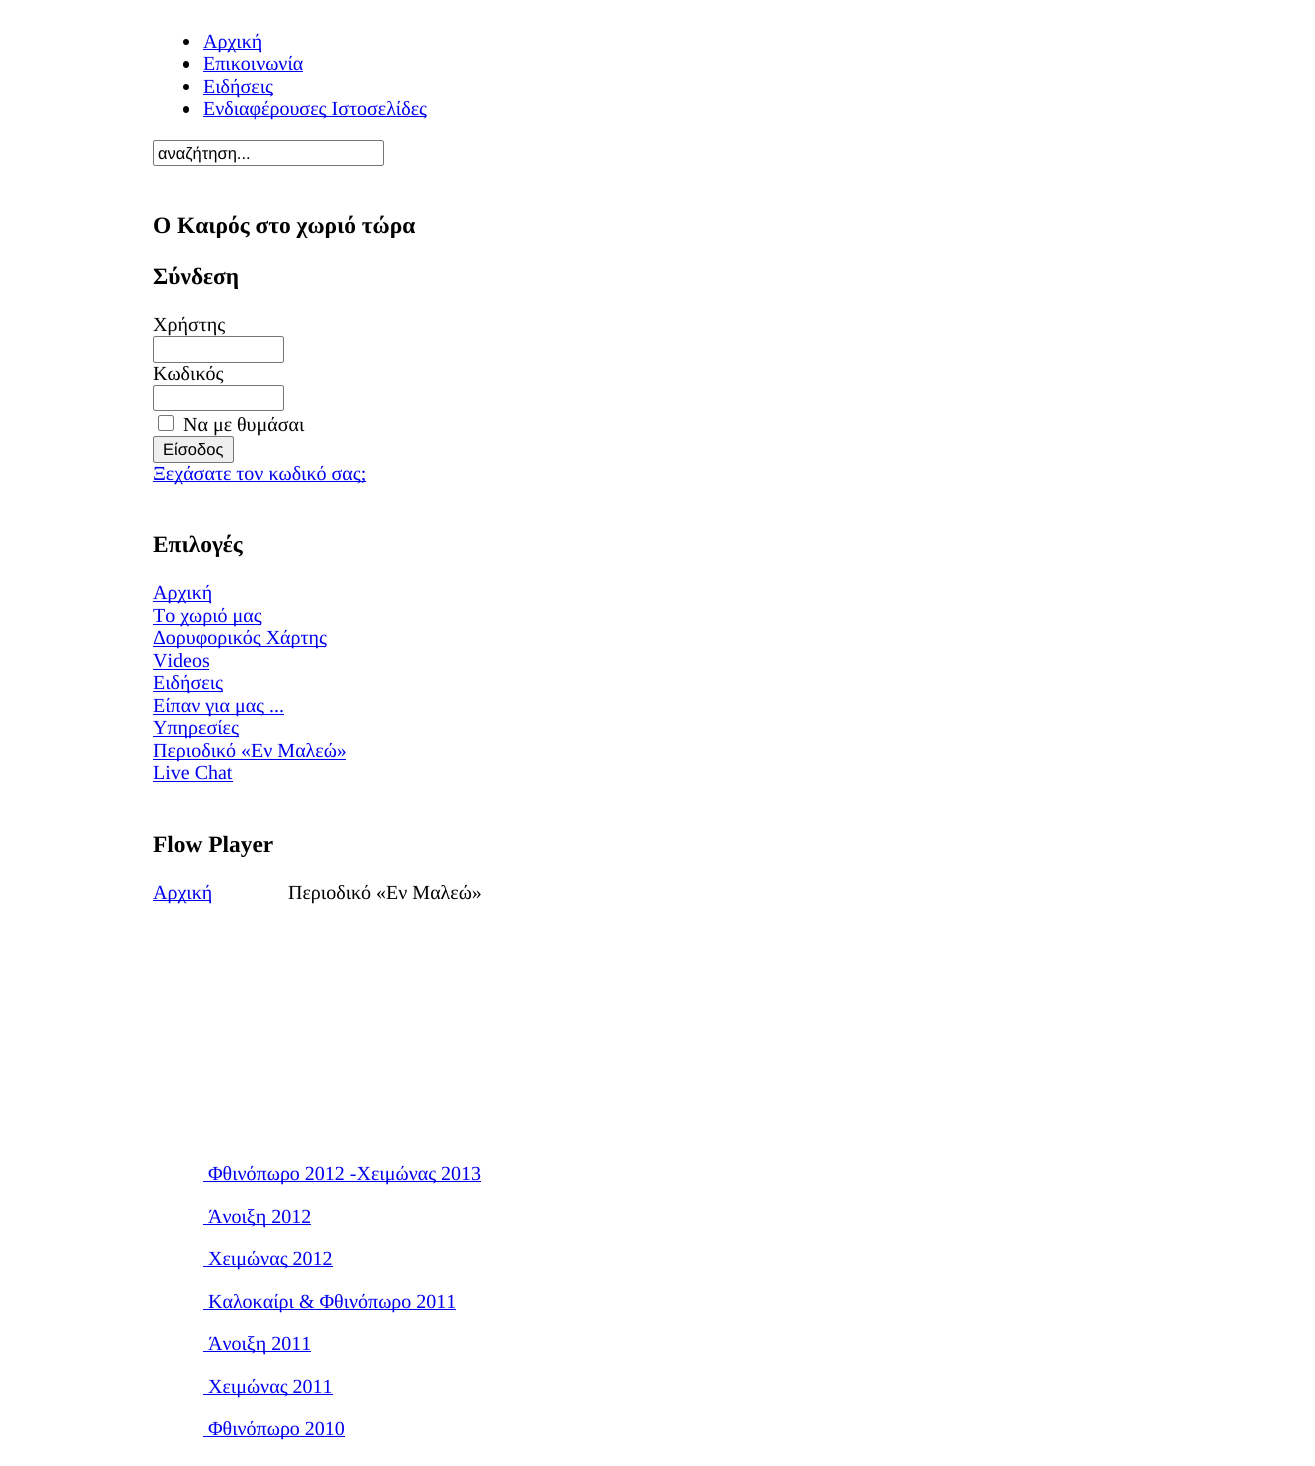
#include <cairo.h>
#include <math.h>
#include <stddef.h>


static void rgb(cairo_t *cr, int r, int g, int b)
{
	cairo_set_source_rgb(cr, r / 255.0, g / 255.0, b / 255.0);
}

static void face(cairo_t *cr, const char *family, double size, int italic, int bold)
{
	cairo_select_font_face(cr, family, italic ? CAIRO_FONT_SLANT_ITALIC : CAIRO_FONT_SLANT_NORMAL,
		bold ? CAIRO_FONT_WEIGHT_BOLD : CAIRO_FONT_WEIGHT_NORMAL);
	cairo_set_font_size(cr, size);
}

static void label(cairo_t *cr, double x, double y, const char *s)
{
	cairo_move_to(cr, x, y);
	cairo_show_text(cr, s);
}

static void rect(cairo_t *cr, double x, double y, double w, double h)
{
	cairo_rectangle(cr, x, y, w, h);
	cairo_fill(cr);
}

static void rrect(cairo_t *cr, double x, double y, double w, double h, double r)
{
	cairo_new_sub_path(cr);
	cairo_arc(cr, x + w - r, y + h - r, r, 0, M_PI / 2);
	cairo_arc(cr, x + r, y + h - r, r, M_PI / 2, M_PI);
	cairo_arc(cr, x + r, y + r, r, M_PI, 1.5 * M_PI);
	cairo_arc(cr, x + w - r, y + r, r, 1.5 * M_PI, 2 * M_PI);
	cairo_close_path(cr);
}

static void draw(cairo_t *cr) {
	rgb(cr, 255, 255, 255);
	cairo_paint(cr);
	rgb(cr, 0, 0, 0);
	cairo_arc(cr, 186, 42, 3, 0, 2 * M_PI);
	cairo_fill(cr);
	rgb(cr, 0, 0, 238);
	rect(cr, 203, 49, 58, 1);
	face(cr, "Liberation Serif", 20, 0, 0);
	label(cr, 203, 48, "Aρχική");
	rgb(cr, 0, 0, 0);
	rrect(cr, 183, 61, 6, 7, 3);
	cairo_fill(cr);
	rgb(cr, 0, 0, 238);
	label(cr, 203, 70, "Επικοινωνία");
	rect(cr, 203, 71, 100, 1);
	rgb(cr, 0, 0, 0);
	cairo_new_path(cr);
	cairo_arc(cr, 186, 87, 3, 0, 2 * M_PI);
	cairo_fill(cr);
	rgb(cr, 0, 0, 238);
	rect(cr, 203, 94, 70, 1);
	label(cr, 203, 93, "Ειδήσεις");
	rgb(cr, 0, 0, 0);
	rrect(cr, 183, 106, 6, 7, 3);
	cairo_fill(cr);
	rgb(cr, 0, 0, 238);
	rect(cr, 203, 116, 223, 1);
	label(cr, 203, 115, "Ενδιαφέρουσες Ιστοσελίδες");
	rrect(cr, 153.5, 140.5, 230, 25, 2);
	rgb(cr, 118, 118, 118);
	cairo_set_line_width(cr, 1);
	cairo_stroke(cr);
	face(cr, "Liberation Sans", 16.5, 0, 0);
	rgb(cr, 0, 0, 0);
	label(cr, 158, 159, "αναζήτηση...");
	face(cr, "Liberation Serif", 23.4, 0, 1);
	label(cr, 153, 233, "O Καιρός στο χωριό τώρα");
	label(cr, 153, 284, "Σύνδεση");
	face(cr, "Liberation Serif", 20, 0, 0);
	label(cr, 153, 331, "Χρήστης");
	rrect(cr, 153.5, 336.5, 130, 26, 2);
	rgb(cr, 118, 118, 118);
	cairo_stroke(cr);
	rgb(cr, 0, 0, 0);
	label(cr, 153, 380, "Κωδικός");
	rrect(cr, 153.5, 385.5, 130, 25, 2);
	rgb(cr, 118, 118, 118);
	cairo_stroke(cr);
	rrect(cr, 158.5, 415.5, 15, 15, 2);
	cairo_stroke(cr);
	rgb(cr, 0, 0, 0);
	label(cr, 183, 431, "Να με θυμάσαι");
	rgb(cr, 239, 239, 239);
	rrect(cr, 153.5, 436.5, 80, 26, 2);
	cairo_fill_preserve(cr);
	rgb(cr, 118, 118, 118);
	cairo_stroke(cr);
	face(cr, "Liberation Sans", 16.5, 0, 0);
	rgb(cr, 0, 0, 0);
	label(cr, 163, 455, "Είσοδος");
	rgb(cr, 0, 0, 238);
	rect(cr, 153, 481, 213, 1);
	face(cr, "Liberation Serif", 20, 0, 0);
	label(cr, 153, 480, "Ξεχάσατε τον κωδικό σας;");
	face(cr, "Liberation Serif", 23.4, 0, 1);
	rgb(cr, 0, 0, 0);
	label(cr, 153, 552, "Επιλογές");
	rgb(cr, 0, 0, 238);
	rect(cr, 153, 601, 58, 1);
	face(cr, "Liberation Serif", 20, 0, 0);
	label(cr, 153, 599, "Αρχική");
	rect(cr, 153, 624, 108, 1);
	label(cr, 153, 622, "To χωριό μας");
	rect(cr, 153, 646, 173, 1);
	label(cr, 153, 644, "Δορυφορικός Χάρτης");
	label(cr, 153, 667, "Videos");
	rect(cr, 153, 669, 56, 1);
	rect(cr, 153, 691, 70, 1);
	label(cr, 153, 689, "Ειδήσεις");
	rect(cr, 153, 714, 131, 1);
	label(cr, 153, 712, "Είπαν για μας ...");
	rect(cr, 153, 736, 86, 1);
	label(cr, 153, 734, "Υπηρεσίες");
	rect(cr, 153, 759, 193, 1);
	label(cr, 153, 757, "Περιοδικό «Εν Μαλεώ»");
	label(cr, 153, 779, "Live Chat");
	rect(cr, 153, 781, 80, 1);
	face(cr, "Liberation Serif", 23.4, 0, 1);
	rgb(cr, 0, 0, 0);
	label(cr, 153, 852, "Flow Player");
	rgb(cr, 0, 0, 238);
	rect(cr, 153, 900, 58, 1);
	face(cr, "Liberation Serif", 20, 0, 0);
	label(cr, 153, 899, "Αρχική");
	rgb(cr, 0, 0, 0);
	label(cr, 288, 899, "Περιοδικό «Εν Μαλεώ»");
	rgb(cr, 0, 0, 238);
	rect(cr, 203, 1181, 278, 1);
	label(cr, 208, 1180, "Φθινόπωρο 2012 -Χειμώνας 2013");
	rect(cr, 203, 1224, 108, 1);
	label(cr, 208, 1223, "Άνοιξη 2012");
	rect(cr, 203, 1266, 130, 1);
	label(cr, 208, 1265, "Χειμώνας 2012");
	rect(cr, 203, 1309, 253, 1);
	label(cr, 208, 1308, "Καλοκαίρι & Φθινόπωρο 2011");
	rect(cr, 203, 1351, 108, 1);
	label(cr, 208, 1350, "Άνοιξη 2011");
	rect(cr, 203, 1394, 130, 1);
	label(cr, 208, 1393, "Χειμώνας 2011");
	rect(cr, 203, 1436, 142, 1);
	label(cr, 208, 1435, "Φθινόπωρο 2010");
}

int main(void) {
	cairo_surface_t *surface = cairo_image_surface_create(CAIRO_FORMAT_RGB24, 1315, 1466);
	cairo_t *cr = cairo_create(surface);
	cairo_font_options_t *options = cairo_font_options_create();
	cairo_font_options_set_hint_metrics(options, CAIRO_HINT_METRICS_OFF);
	cairo_font_options_set_hint_style(options, CAIRO_HINT_STYLE_NONE);
	cairo_set_font_options(cr, options);
	cairo_set_miter_limit(cr, 4);
	draw(cr);
	cairo_surface_write_to_png(surface, "render.png");
	cairo_font_options_destroy(options);
	cairo_destroy(cr);
	cairo_surface_destroy(surface);
	return 0;
}
